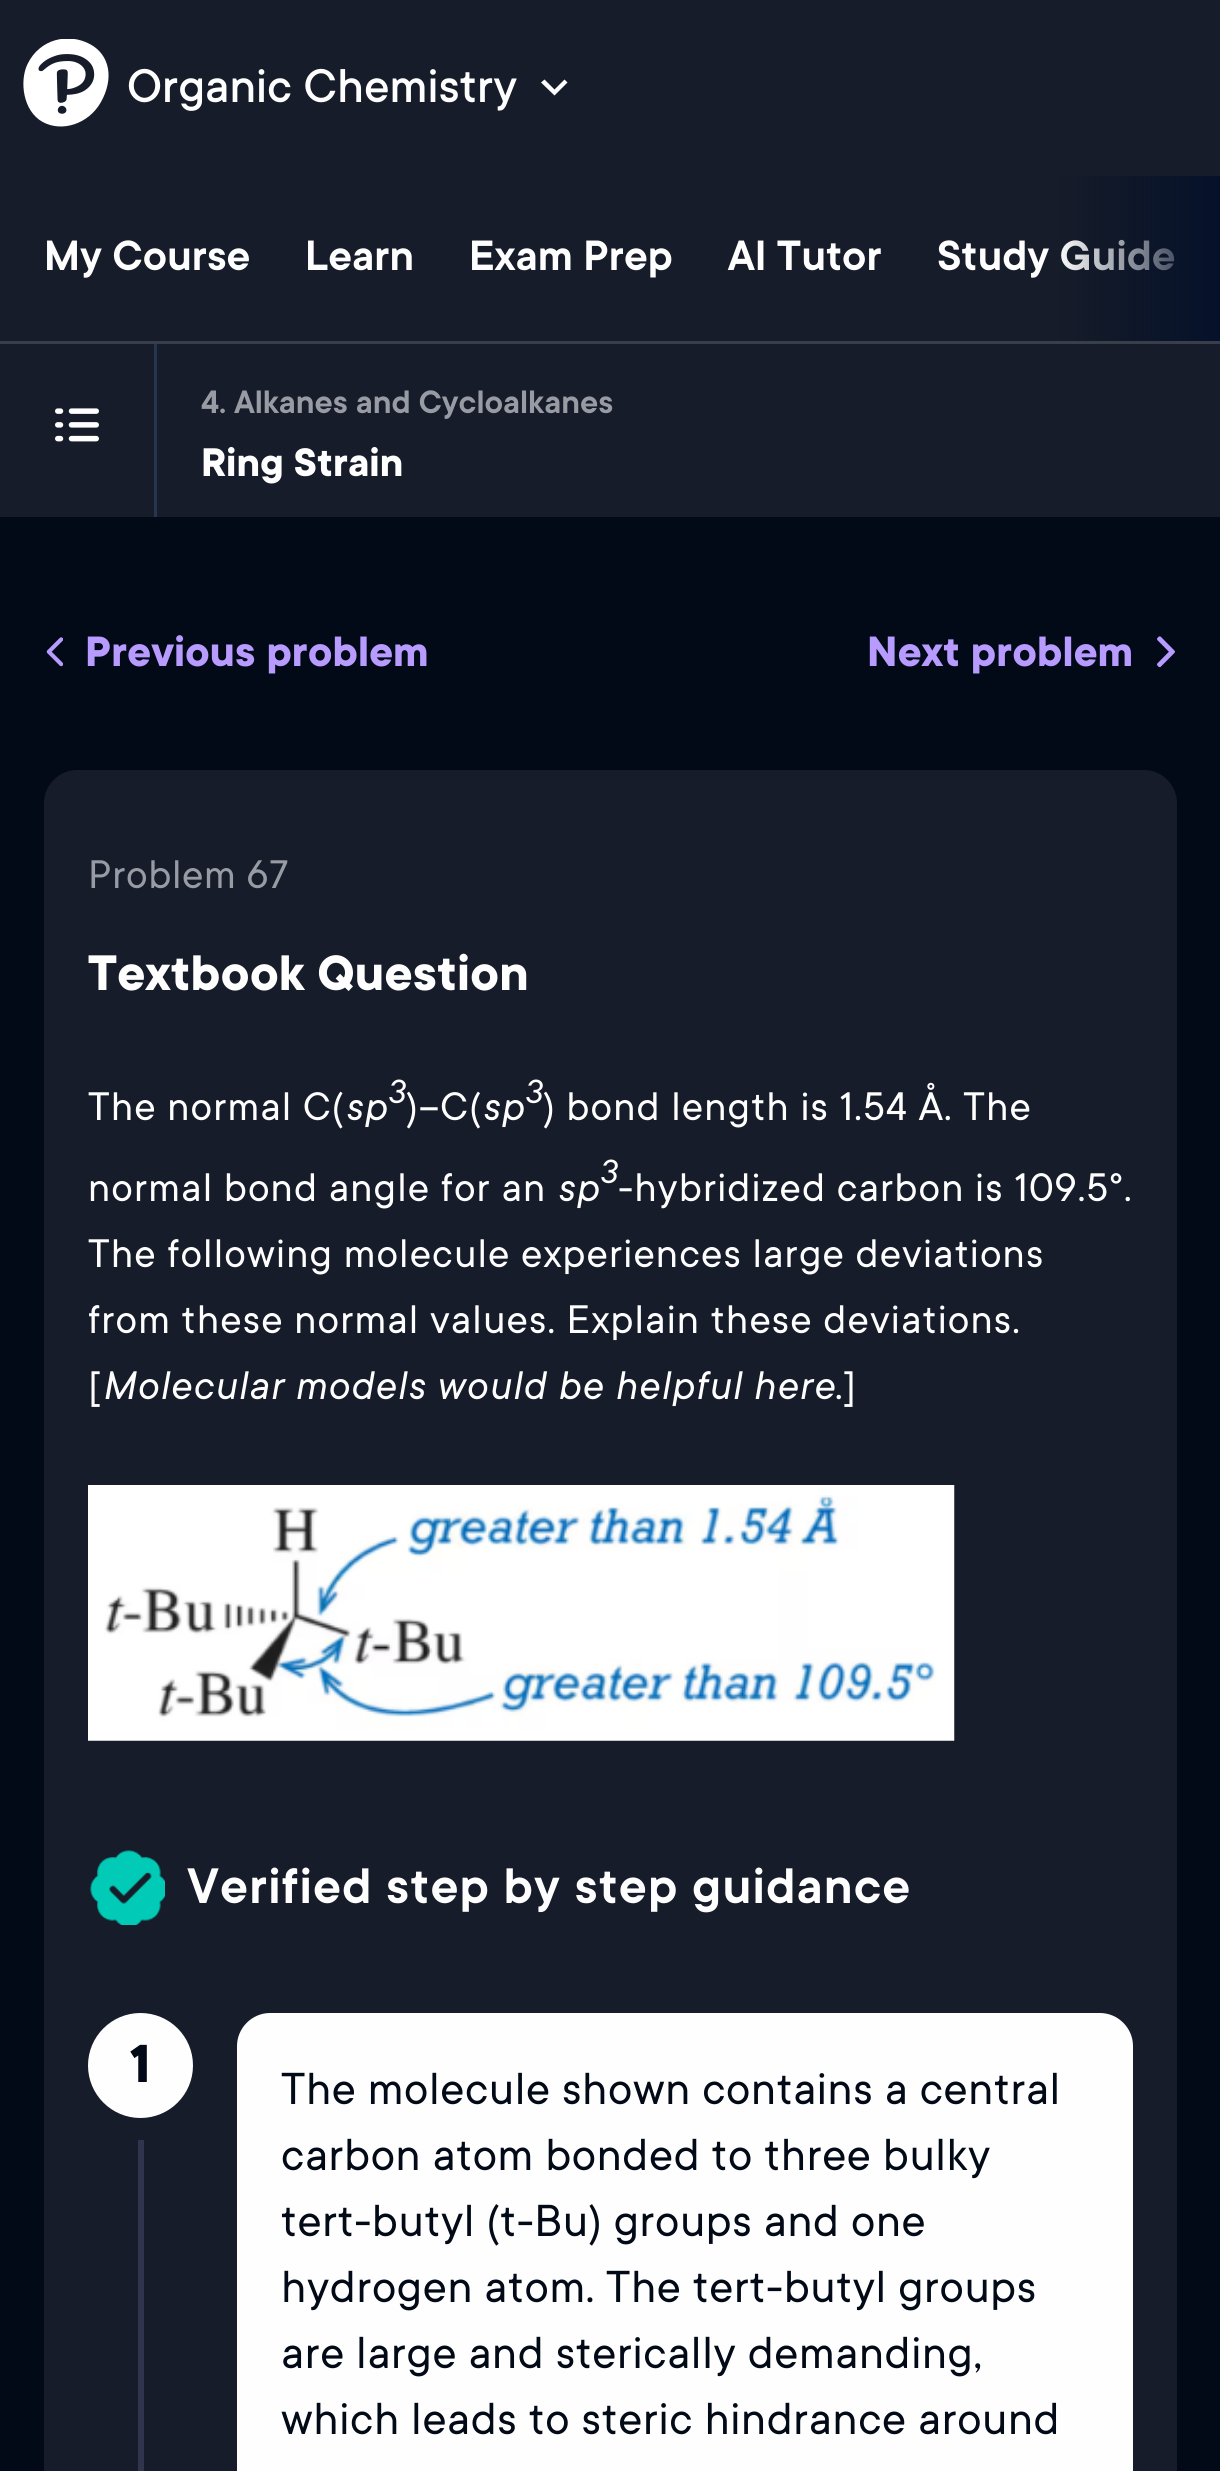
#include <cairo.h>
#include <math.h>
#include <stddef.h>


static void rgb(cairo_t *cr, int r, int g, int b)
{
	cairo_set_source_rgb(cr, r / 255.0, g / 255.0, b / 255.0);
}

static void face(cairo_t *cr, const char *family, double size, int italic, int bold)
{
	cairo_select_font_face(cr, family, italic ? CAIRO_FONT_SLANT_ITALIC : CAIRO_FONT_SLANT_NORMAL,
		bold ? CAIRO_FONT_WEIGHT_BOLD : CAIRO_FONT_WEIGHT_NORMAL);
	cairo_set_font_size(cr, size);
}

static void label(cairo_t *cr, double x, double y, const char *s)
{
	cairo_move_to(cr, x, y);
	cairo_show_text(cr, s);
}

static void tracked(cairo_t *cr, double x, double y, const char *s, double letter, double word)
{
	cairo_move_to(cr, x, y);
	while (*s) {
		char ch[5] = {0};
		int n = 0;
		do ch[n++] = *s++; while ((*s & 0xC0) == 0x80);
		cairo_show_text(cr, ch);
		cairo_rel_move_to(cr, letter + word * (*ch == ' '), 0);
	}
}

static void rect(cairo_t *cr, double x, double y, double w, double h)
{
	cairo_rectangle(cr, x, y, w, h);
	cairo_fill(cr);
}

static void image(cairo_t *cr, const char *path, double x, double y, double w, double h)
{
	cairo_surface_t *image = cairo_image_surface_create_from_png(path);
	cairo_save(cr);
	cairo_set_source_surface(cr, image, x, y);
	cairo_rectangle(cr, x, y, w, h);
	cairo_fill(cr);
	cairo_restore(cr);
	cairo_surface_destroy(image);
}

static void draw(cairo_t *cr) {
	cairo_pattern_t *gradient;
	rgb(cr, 2, 9, 23);
	cairo_paint(cr);
	rgb(cr, 22, 28, 41);
	rect(cr, 0, 0, 1220, 341);
	image(cr, "image0.png", 23, 39, 86, 88);
	face(cr, "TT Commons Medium", 52.25, 0, 0);
	rgb(cr, 254, 254, 254);
	label(cr, 127, 102, "Organic Chemistry");
	cairo_new_path(cr);
	cairo_move_to(cr, 544.5, 79.5);
	cairo_line_to(cr, 554.5, 89.5);
	cairo_line_to(cr, 564.5, 79.5);
	cairo_line_to(cr, 567.5, 82.5);
	cairo_line_to(cr, 554.5, 95.5);
	cairo_line_to(cr, 541, 82.5);
	cairo_close_path(cr);
	cairo_fill(cr);
	rgb(cr, 57, 63, 74);
	rect(cr, 0, 341, 1220, 3);
	face(cr, "TT Commons SemiBold", 46.75, 0, 0);
	rgb(cr, 254, 254, 254);
	label(cr, 937, 270, "Study Guide");
	gradient = cairo_pattern_create_linear(1056, 259, 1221, 259);
	cairo_pattern_add_color_stop_rgba(gradient, 0, 0.02, 0.067, 0.165, 0);
	cairo_pattern_add_color_stop_rgba(gradient, 1, 0.02, 0.067, 0.165, 1);
	cairo_set_source(cr, gradient);
	cairo_pattern_destroy(gradient);
	rect(cr, 1061, 176, 159, 165);
	rgb(cr, 254, 254, 254);
	label(cr, 44, 270, "My Course");
	label(cr, 305, 270, "Learn");
	label(cr, 469, 270, "Exam Prep");
	label(cr, 728, 270, "AI Tutor");
	rgb(cr, 22, 28, 41);
	rect(cr, 0, 344, 1220, 173);
	image(cr, "image1.png", 55, 408, 44, 34);
	rgb(cr, 40, 53, 78);
	rect(cr, 154, 344, 3, 173);
	face(cr, "TT Commons SemiBold", 35.75, 0, 0);
	rgb(cr, 152, 155, 163);
	label(cr, 201, 413, "4. Alkanes and Cycloalkanes");
	face(cr, "TT Commons", 44, 0, 1);
	rgb(cr, 254, 254, 254);
	label(cr, 201, 476, "Ring Strain");
	image(cr, "image2.png", 46, 637, 17, 30);
	face(cr, "TT Commons", 46.75, 0, 1);
	rgb(cr, 183, 155, 255);
	label(cr, 85, 666, "Previous problem");
	label(cr, 867, 666, "Next problem");
	image(cr, "image3.png", 1157, 636, 18, 32);
	rgb(cr, 22, 28, 41);
	cairo_new_path(cr);
	cairo_move_to(cr, 77, 770);
	cairo_line_to(cr, 1144, 770);
	cairo_curve_to(cr, 1162, 770, 1177, 785, 1177, 803);
	cairo_line_to(cr, 1177, 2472);
	cairo_line_to(cr, 44, 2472);
	cairo_line_to(cr, 44, 803);
	cairo_curve_to(cr, 44, 785, 59, 770, 77, 770);
	cairo_close_path(cr);
	cairo_fill(cr);
	face(cr, "TT Commons", 44, 0, 0);
	rgb(cr, 152, 155, 163);
	tracked(cr, 88, 888, "Problem 67", 0.65, 0);
	face(cr, "TT Commons", 55, 0, 1);
	rgb(cr, 254, 254, 254);
	label(cr, 88, 990, "Textbook Question");
	face(cr, "TT Commons", 44, 0, 0);
	tracked(cr, 88, 1120, "The normal C(", 1.1, 0);
	face(cr, "TT Commons", 44, 1, 0);
	tracked(cr, 345, 1120, "sp", 1.1, 0);
	face(cr, "TT Commons", 37, 1, 0);
	tracked(cr, 387, 1103, "3", 1.1, 0);
	face(cr, "TT Commons", 44, 0, 0);
	tracked(cr, 406, 1120, ")–C(", 1.1, 0);
	face(cr, "TT Commons", 44, 1, 0);
	tracked(cr, 482, 1120, "sp", 1.1, 0);
	face(cr, "TT Commons", 37, 1, 0);
	tracked(cr, 524, 1103, "3", 1.1, 0);
	face(cr, "TT Commons", 44, 0, 0);
	tracked(cr, 543, 1120, ") bond length is 1.54 Å. The", 1.1, 0);
	tracked(cr, 88, 1201, "normal bond angle for an", 1.1, 0);
	face(cr, "TT Commons", 44, 1, 0);
	tracked(cr, 557, 1201, "sp", 1.1, 0);
	face(cr, "TT Commons", 37, 1, 0);
	tracked(cr, 599, 1183, "3", 1.1, 0);
	face(cr, "TT Commons", 44, 0, 0);
	tracked(cr, 618, 1201, "-hybridized carbon is 109.5°.", 1.1, 0);
	tracked(cr, 88, 1267, "The following molecule experiences large deviations", 1.1, 0);
	tracked(cr, 88, 1333, "from these normal values. Explain these deviations.", 1.1, 0);
	tracked(cr, 88, 1399, "[", 1.1, 0);
	face(cr, "TT Commons", 44, 1, 0);
	tracked(cr, 102, 1399, "Molecular models would be helpful here", 1.1, 0);
	face(cr, "TT Commons", 44, 0, 0);
	tracked(cr, 835, 1399, ".]", 1.1, 0);
	image(cr, "image4.png", 88, 1485, 867, 256);
	image(cr, "image5.png", 90, 1850, 75, 75);
	face(cr, "TT Commons SemiBold", 55, 0, 0);
	tracked(cr, 187, 1903, "Verified step by step guidance", 1.1, 0);
	cairo_new_path(cr);
	cairo_arc(cr, 140.5, 2065.5, 52.5, 0, 2 * M_PI);
	cairo_fill(cr);
	face(cr, "TT Commons", 59, 0, 1);
	rgb(cr, 2, 9, 23);
	label(cr, 130, 2082, "1");
	rgb(cr, 48, 52, 77);
	rect(cr, 138, 2140, 6, 331);
	rgb(cr, 254, 254, 254);
	cairo_new_path(cr);
	cairo_move_to(cr, 270, 2013);
	cairo_line_to(cr, 1100, 2013);
	cairo_curve_to(cr, 1118, 2013, 1133, 2028, 1133, 2046);
	cairo_line_to(cr, 1133, 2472);
	cairo_line_to(cr, 237, 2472);
	cairo_line_to(cr, 237, 2046);
	cairo_curve_to(cr, 237, 2028, 252, 2013, 270, 2013);
	cairo_close_path(cr);
	cairo_fill(cr);
	face(cr, "TT Commons", 49.5, 0, 0);
	rgb(cr, 2, 9, 23);
	tracked(cr, 281, 2104, "The molecule shown contains a central", 0.65, 0);
	tracked(cr, 281, 2170, "carbon atom bonded to three bulky", 0.65, 0);
	tracked(cr, 281, 2236, "tert-butyl (t-Bu) groups and one", 0.65, 0);
	tracked(cr, 281, 2302, "hydrogen atom. The tert-butyl groups", 0.65, 0);
	tracked(cr, 281, 2368, "are large and sterically demanding,", 0.65, 0);
	tracked(cr, 281, 2434, "which leads to steric hindrance around", 0.65, 0);
}

int main(void) {
	cairo_surface_t *surface = cairo_image_surface_create(CAIRO_FORMAT_RGB24, 1220, 2471);
	cairo_t *cr = cairo_create(surface);
	cairo_font_options_t *options = cairo_font_options_create();
	cairo_font_options_set_hint_metrics(options, CAIRO_HINT_METRICS_OFF);
	cairo_font_options_set_hint_style(options, CAIRO_HINT_STYLE_NONE);
	cairo_set_font_options(cr, options);
	cairo_set_miter_limit(cr, 4);
	draw(cr);
	cairo_surface_write_to_png(surface, "render.png");
	cairo_font_options_destroy(options);
	cairo_destroy(cr);
	cairo_surface_destroy(surface);
	return 0;
}
